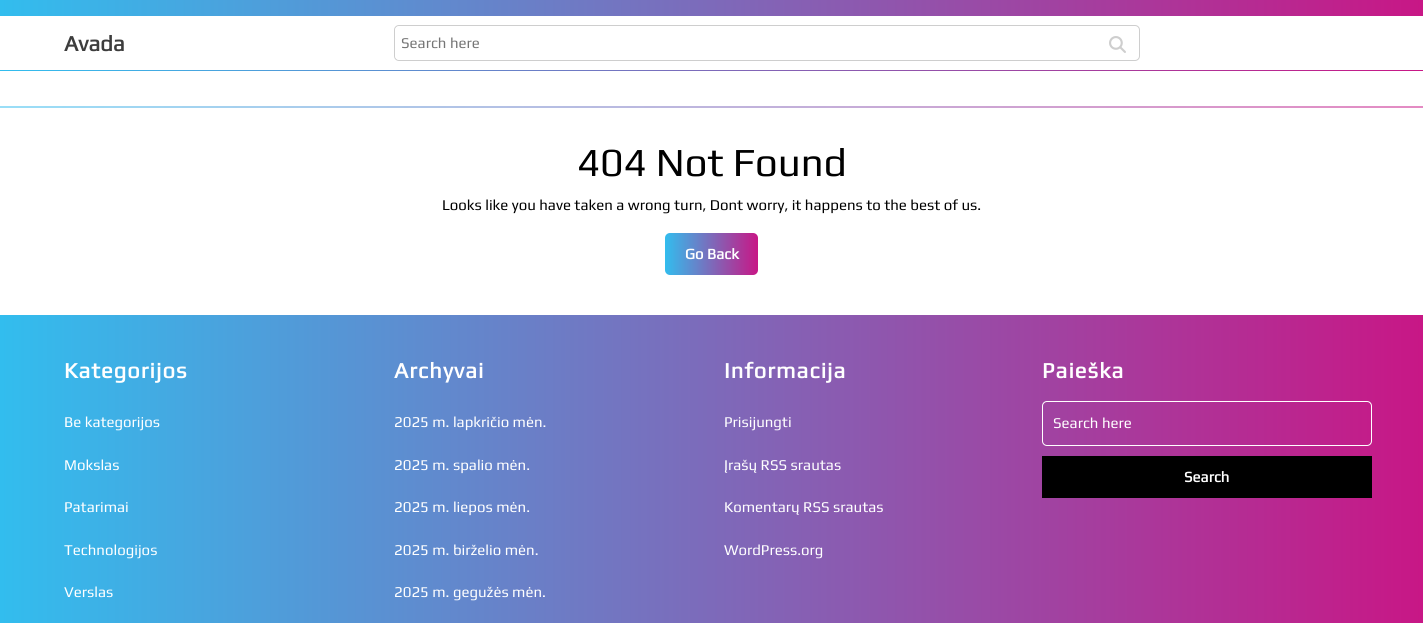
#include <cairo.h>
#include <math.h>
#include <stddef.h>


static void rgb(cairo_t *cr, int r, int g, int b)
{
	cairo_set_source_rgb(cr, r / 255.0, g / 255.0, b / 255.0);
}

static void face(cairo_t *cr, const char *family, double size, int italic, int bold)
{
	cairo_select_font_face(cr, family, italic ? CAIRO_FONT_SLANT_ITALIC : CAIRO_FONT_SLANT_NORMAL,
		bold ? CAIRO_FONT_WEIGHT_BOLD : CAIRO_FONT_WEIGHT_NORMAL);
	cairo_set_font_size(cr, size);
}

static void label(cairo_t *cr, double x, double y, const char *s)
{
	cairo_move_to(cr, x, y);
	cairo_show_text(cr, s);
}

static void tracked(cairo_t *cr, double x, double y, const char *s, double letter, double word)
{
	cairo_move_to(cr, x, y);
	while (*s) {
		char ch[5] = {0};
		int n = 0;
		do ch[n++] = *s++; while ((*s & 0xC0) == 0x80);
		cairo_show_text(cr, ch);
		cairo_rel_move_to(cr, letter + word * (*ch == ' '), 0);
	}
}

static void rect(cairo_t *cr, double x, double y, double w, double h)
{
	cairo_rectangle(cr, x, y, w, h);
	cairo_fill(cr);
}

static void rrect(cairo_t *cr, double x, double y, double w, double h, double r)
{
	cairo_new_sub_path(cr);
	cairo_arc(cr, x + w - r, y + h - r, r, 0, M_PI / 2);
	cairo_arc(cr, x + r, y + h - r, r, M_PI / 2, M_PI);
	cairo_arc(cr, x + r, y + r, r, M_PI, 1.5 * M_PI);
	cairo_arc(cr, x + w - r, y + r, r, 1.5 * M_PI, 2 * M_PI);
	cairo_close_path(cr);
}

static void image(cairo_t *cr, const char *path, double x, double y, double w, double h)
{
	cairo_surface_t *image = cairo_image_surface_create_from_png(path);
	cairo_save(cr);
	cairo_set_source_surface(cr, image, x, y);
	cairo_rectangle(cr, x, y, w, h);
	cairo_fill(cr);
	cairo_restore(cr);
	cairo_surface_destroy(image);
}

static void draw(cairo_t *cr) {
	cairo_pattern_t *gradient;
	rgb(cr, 255, 255, 255);
	cairo_paint(cr);
	gradient = cairo_pattern_create_linear(0, 8, 1423, 8);
	cairo_pattern_add_color_stop_rgba(gradient, 0, 0.196, 0.741, 0.933, 1);
	cairo_pattern_add_color_stop_rgba(gradient, 1, 0.784, 0.09, 0.525, 1);
	cairo_set_source(cr, gradient);
	cairo_pattern_destroy(gradient);
	rect(cr, 0, 0, 1423, 16);
	face(cr, "Play", 22, 0, 1);
	rgb(cr, 61, 61, 61);
	label(cr, 64, 51, "Avada");
	rrect(cr, 394.5, 25.5, 745, 35, 4.5);
	rgb(cr, 206, 206, 206);
	cairo_set_line_width(cr, 1);
	cairo_stroke(cr);
	rgb(cr, 255, 255, 255);
	rrect(cr, 395, 26, 714, 34, 5);
	cairo_fill(cr);
	face(cr, "Play", 15, 0, 0);
	rgb(cr, 117, 117, 117);
	label(cr, 401, 48, "Search here");
	image(cr, "image0.png", 1109, 36, 17, 17);
	gradient = cairo_pattern_create_linear(0, 71, 1423, 70);
	cairo_pattern_add_color_stop_rgba(gradient, 0, 0.196, 0.741, 0.933, 1);
	cairo_pattern_add_color_stop_rgba(gradient, 1, 0.784, 0.09, 0.525, 1);
	cairo_set_source(cr, gradient);
	cairo_pattern_destroy(gradient);
	rect(cr, 0, 70, 1423, 1);
	gradient = cairo_pattern_create_linear(0, 107, 1423, 107);
	cairo_pattern_add_color_stop_rgba(gradient, 0, 0.6, 0.871, 0.969, 1);
	cairo_pattern_add_color_stop_rgba(gradient, 1, 0.894, 0.545, 0.765, 1);
	cairo_set_source(cr, gradient);
	cairo_pattern_destroy(gradient);
	rect(cr, 0, 106, 1423, 2);
	face(cr, "Play", 40, 0, 0);
	rgb(cr, 0, 0, 0);
	label(cr, 577, 176, "404 Not Found");
	face(cr, "Play", 15, 0, 0);
	label(cr, 442, 210, "Looks like you have taken a wrong turn, Dont worry, it happens to the best of us.");
	gradient = cairo_pattern_create_linear(665, 254, 758, 254);
	cairo_pattern_add_color_stop_rgba(gradient, 0, 0.196, 0.741, 0.933, 1);
	cairo_pattern_add_color_stop_rgba(gradient, 1, 0.784, 0.09, 0.525, 1);
	cairo_set_source(cr, gradient);
	cairo_pattern_destroy(gradient);
	rrect(cr, 665, 233, 93, 42, 5);
	cairo_fill(cr);
	face(cr, "Play", 15, 0, 1);
	rgb(cr, 255, 255, 255);
	label(cr, 685, 259, "Go Back");
	gradient = cairo_pattern_create_linear(0, 567, 1423, 567);
	cairo_pattern_add_color_stop_rgba(gradient, 0, 0.196, 0.741, 0.933, 1);
	cairo_pattern_add_color_stop_rgba(gradient, 1, 0.784, 0.09, 0.525, 1);
	cairo_set_source(cr, gradient);
	cairo_pattern_destroy(gradient);
	rect(cr, 0, 315, 1423, 308);
	face(cr, "Play", 22, 0, 1);
	rgb(cr, 255, 255, 255);
	tracked(cr, 64, 378, "Kategorijos", 1, 0);
	face(cr, "Play", 15, 0, 0);
	label(cr, 64, 427, "Be kategorijos");
	label(cr, 64, 470, "Mokslas");
	label(cr, 64, 512, "Patarimai");
	label(cr, 64, 555, "Technologijos");
	label(cr, 64, 597, "Verslas");
	face(cr, "Play", 22, 0, 1);
	tracked(cr, 394, 378, "Archyvai", 1, 0);
	face(cr, "Play", 15, 0, 0);
	label(cr, 394, 427, "2025 m. lapkričio mėn.");
	label(cr, 394, 470, "2025 m. spalio mėn.");
	label(cr, 394, 512, "2025 m. liepos mėn.");
	label(cr, 394, 555, "2025 m. birželio mėn.");
	label(cr, 394, 597, "2025 m. gegužės mėn.");
	face(cr, "Play", 22, 0, 1);
	tracked(cr, 724, 378, "Informacija", 1, 0);
	face(cr, "Play", 15, 0, 0);
	label(cr, 724, 427, "Prisijungti");
	label(cr, 724, 470, "Įrašų RSS srautas");
	label(cr, 724, 512, "Komentarų RSS srautas");
	label(cr, 724, 555, "WordPress.org");
	face(cr, "Play", 22, 0, 1);
	tracked(cr, 1042, 378, "Paieška", 1, 0);
	rrect(cr, 1042.5, 401.5, 329, 44, 4.5);
	cairo_stroke(cr);
	face(cr, "Play", 15, 0, 0);
	label(cr, 1053, 428, "Search here");
	rgb(cr, 0, 0, 0);
	rect(cr, 1042, 456, 330, 42);
	face(cr, "Play", 15, 0, 1);
	rgb(cr, 255, 255, 255);
	label(cr, 1184, 482, "Search");
}

int main(void) {
	cairo_surface_t *surface = cairo_image_surface_create(CAIRO_FORMAT_RGB24, 1423, 623);
	cairo_t *cr = cairo_create(surface);
	cairo_font_options_t *options = cairo_font_options_create();
	cairo_font_options_set_hint_metrics(options, CAIRO_HINT_METRICS_OFF);
	cairo_font_options_set_hint_style(options, CAIRO_HINT_STYLE_NONE);
	cairo_set_font_options(cr, options);
	cairo_set_miter_limit(cr, 4);
	draw(cr);
	cairo_surface_write_to_png(surface, "render.png");
	cairo_font_options_destroy(options);
	cairo_destroy(cr);
	cairo_surface_destroy(surface);
	return 0;
}
